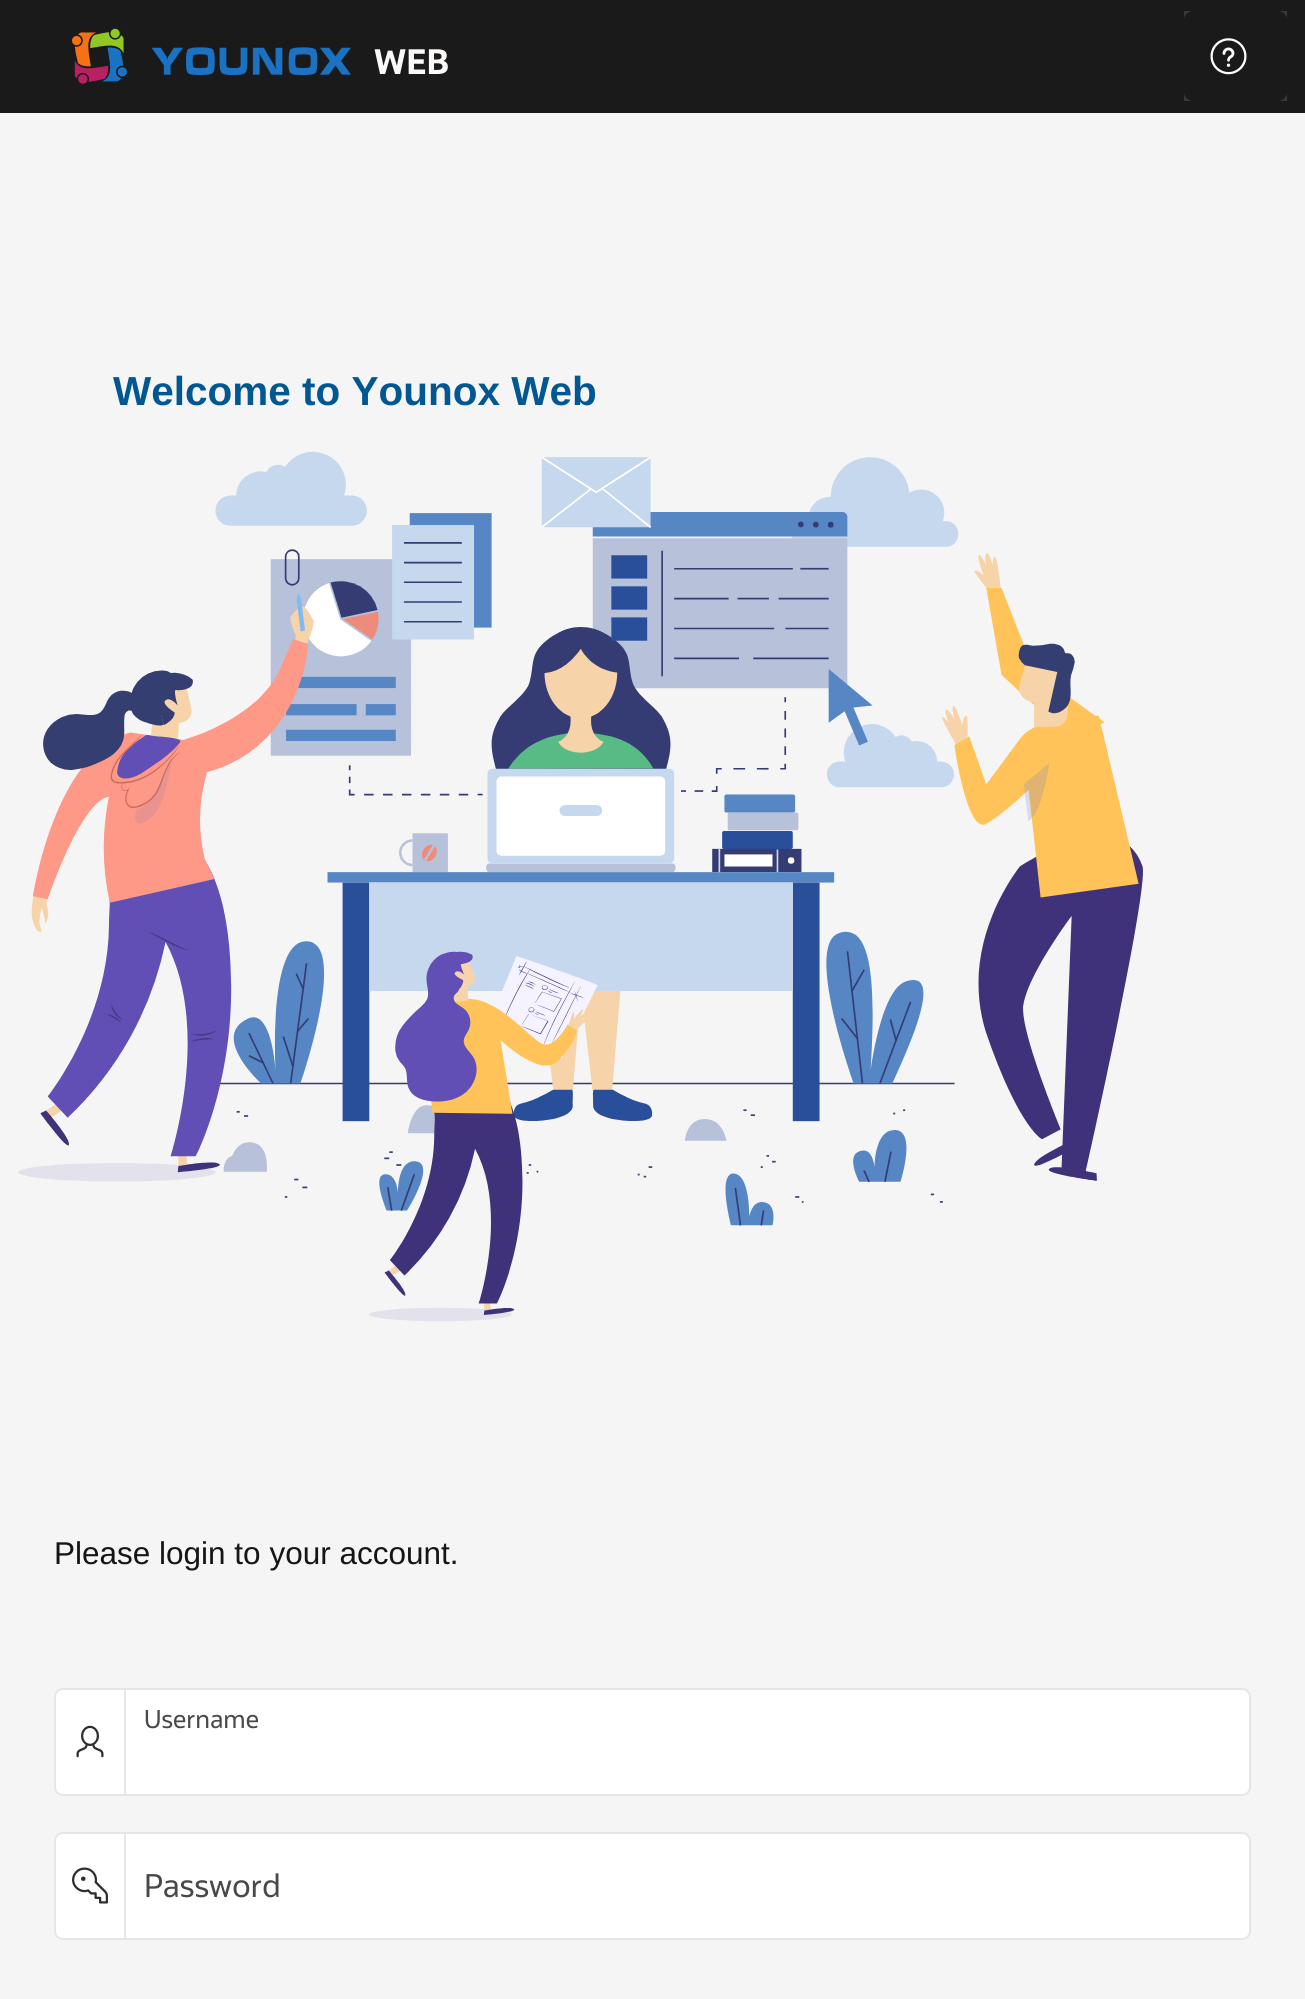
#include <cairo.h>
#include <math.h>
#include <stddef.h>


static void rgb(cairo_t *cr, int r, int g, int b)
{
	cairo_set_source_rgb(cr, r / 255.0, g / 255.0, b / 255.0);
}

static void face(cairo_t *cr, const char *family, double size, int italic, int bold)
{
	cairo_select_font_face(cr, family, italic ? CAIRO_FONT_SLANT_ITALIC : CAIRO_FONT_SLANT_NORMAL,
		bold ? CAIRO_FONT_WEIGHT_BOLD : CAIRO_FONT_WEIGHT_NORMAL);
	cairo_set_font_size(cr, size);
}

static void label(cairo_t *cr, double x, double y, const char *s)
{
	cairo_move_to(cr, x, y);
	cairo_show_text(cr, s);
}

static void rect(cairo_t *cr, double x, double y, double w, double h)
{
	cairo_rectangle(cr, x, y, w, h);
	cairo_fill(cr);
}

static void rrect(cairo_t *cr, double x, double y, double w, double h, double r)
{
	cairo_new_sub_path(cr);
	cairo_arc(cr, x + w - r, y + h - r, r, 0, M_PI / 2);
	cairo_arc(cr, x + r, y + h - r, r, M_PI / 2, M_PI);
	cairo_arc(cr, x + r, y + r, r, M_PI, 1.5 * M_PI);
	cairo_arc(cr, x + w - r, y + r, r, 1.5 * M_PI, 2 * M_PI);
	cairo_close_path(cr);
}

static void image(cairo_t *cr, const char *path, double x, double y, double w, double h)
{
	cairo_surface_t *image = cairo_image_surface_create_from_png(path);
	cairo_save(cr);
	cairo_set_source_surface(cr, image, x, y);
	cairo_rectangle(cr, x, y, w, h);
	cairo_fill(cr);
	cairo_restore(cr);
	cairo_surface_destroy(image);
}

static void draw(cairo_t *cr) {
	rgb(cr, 245, 245, 245);
	cairo_paint(cr);
	rgb(cr, 26, 26, 26);
	rect(cr, 0, 0, 1305, 113);
	image(cr, "image0.png", 72, 28, 279, 56);
	face(cr, "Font", 34, 0, 1);
	rgb(cr, 251, 249, 248);
	label(cr, 374, 74, "WEB");
	rgb(cr, 56, 56, 56);
	rect(cr, 1184, 11, 103, 90);
	rgb(cr, 26, 26, 26);
	rrect(cr, 1184, 11, 103, 90, 9);
	cairo_fill(cr);
	image(cr, "image1.png", 1210, 38, 37, 37);
	face(cr, "Liberation Sans", 40.5, 0, 1);
	rgb(cr, 0, 87, 146);
	label(cr, 113, 405, "Welcome to Younox Web");
	image(cr, "image2.png", 18, 451, 1125, 871);
	face(cr, "Liberation Sans", 31.5, 0, 0);
	rgb(cr, 22, 21, 19);
	label(cr, 54, 1564, "Please login to your account.");
	rgb(cr, 255, 255, 255);
	rrect(cr, 55, 1689, 1195, 106, 8);
	cairo_fill_preserve(cr);
	rgb(cr, 230, 230, 230);
	cairo_stroke(cr);
	rect(cr, 124, 1688, 2, 108);
	image(cr, "image3.png", 76, 1725, 28, 33);
	face(cr, "Font", 24.75, 0, 0);
	rgb(cr, 72, 72, 72);
	label(cr, 144, 1728, "Username");
	rgb(cr, 255, 255, 255);
	rrect(cr, 55, 1833, 1195, 106, 8);
	cairo_fill_preserve(cr);
	rgb(cr, 230, 230, 230);
	cairo_stroke(cr);
	rect(cr, 124, 1832, 2, 108);
	image(cr, "image4.png", 72, 1867, 36, 37);
	face(cr, "Font", 31.5, 0, 0);
	rgb(cr, 72, 72, 72);
	label(cr, 144, 1897, "Password");
}

int main(void) {
	cairo_surface_t *surface = cairo_image_surface_create(CAIRO_FORMAT_RGB24, 1305, 1999);
	cairo_t *cr = cairo_create(surface);
	cairo_font_options_t *options = cairo_font_options_create();
	cairo_font_options_set_hint_metrics(options, CAIRO_HINT_METRICS_OFF);
	cairo_font_options_set_hint_style(options, CAIRO_HINT_STYLE_NONE);
	cairo_set_font_options(cr, options);
	cairo_set_miter_limit(cr, 4);
	draw(cr);
	cairo_surface_write_to_png(surface, "render.png");
	cairo_font_options_destroy(options);
	cairo_destroy(cr);
	cairo_surface_destroy(surface);
	return 0;
}
